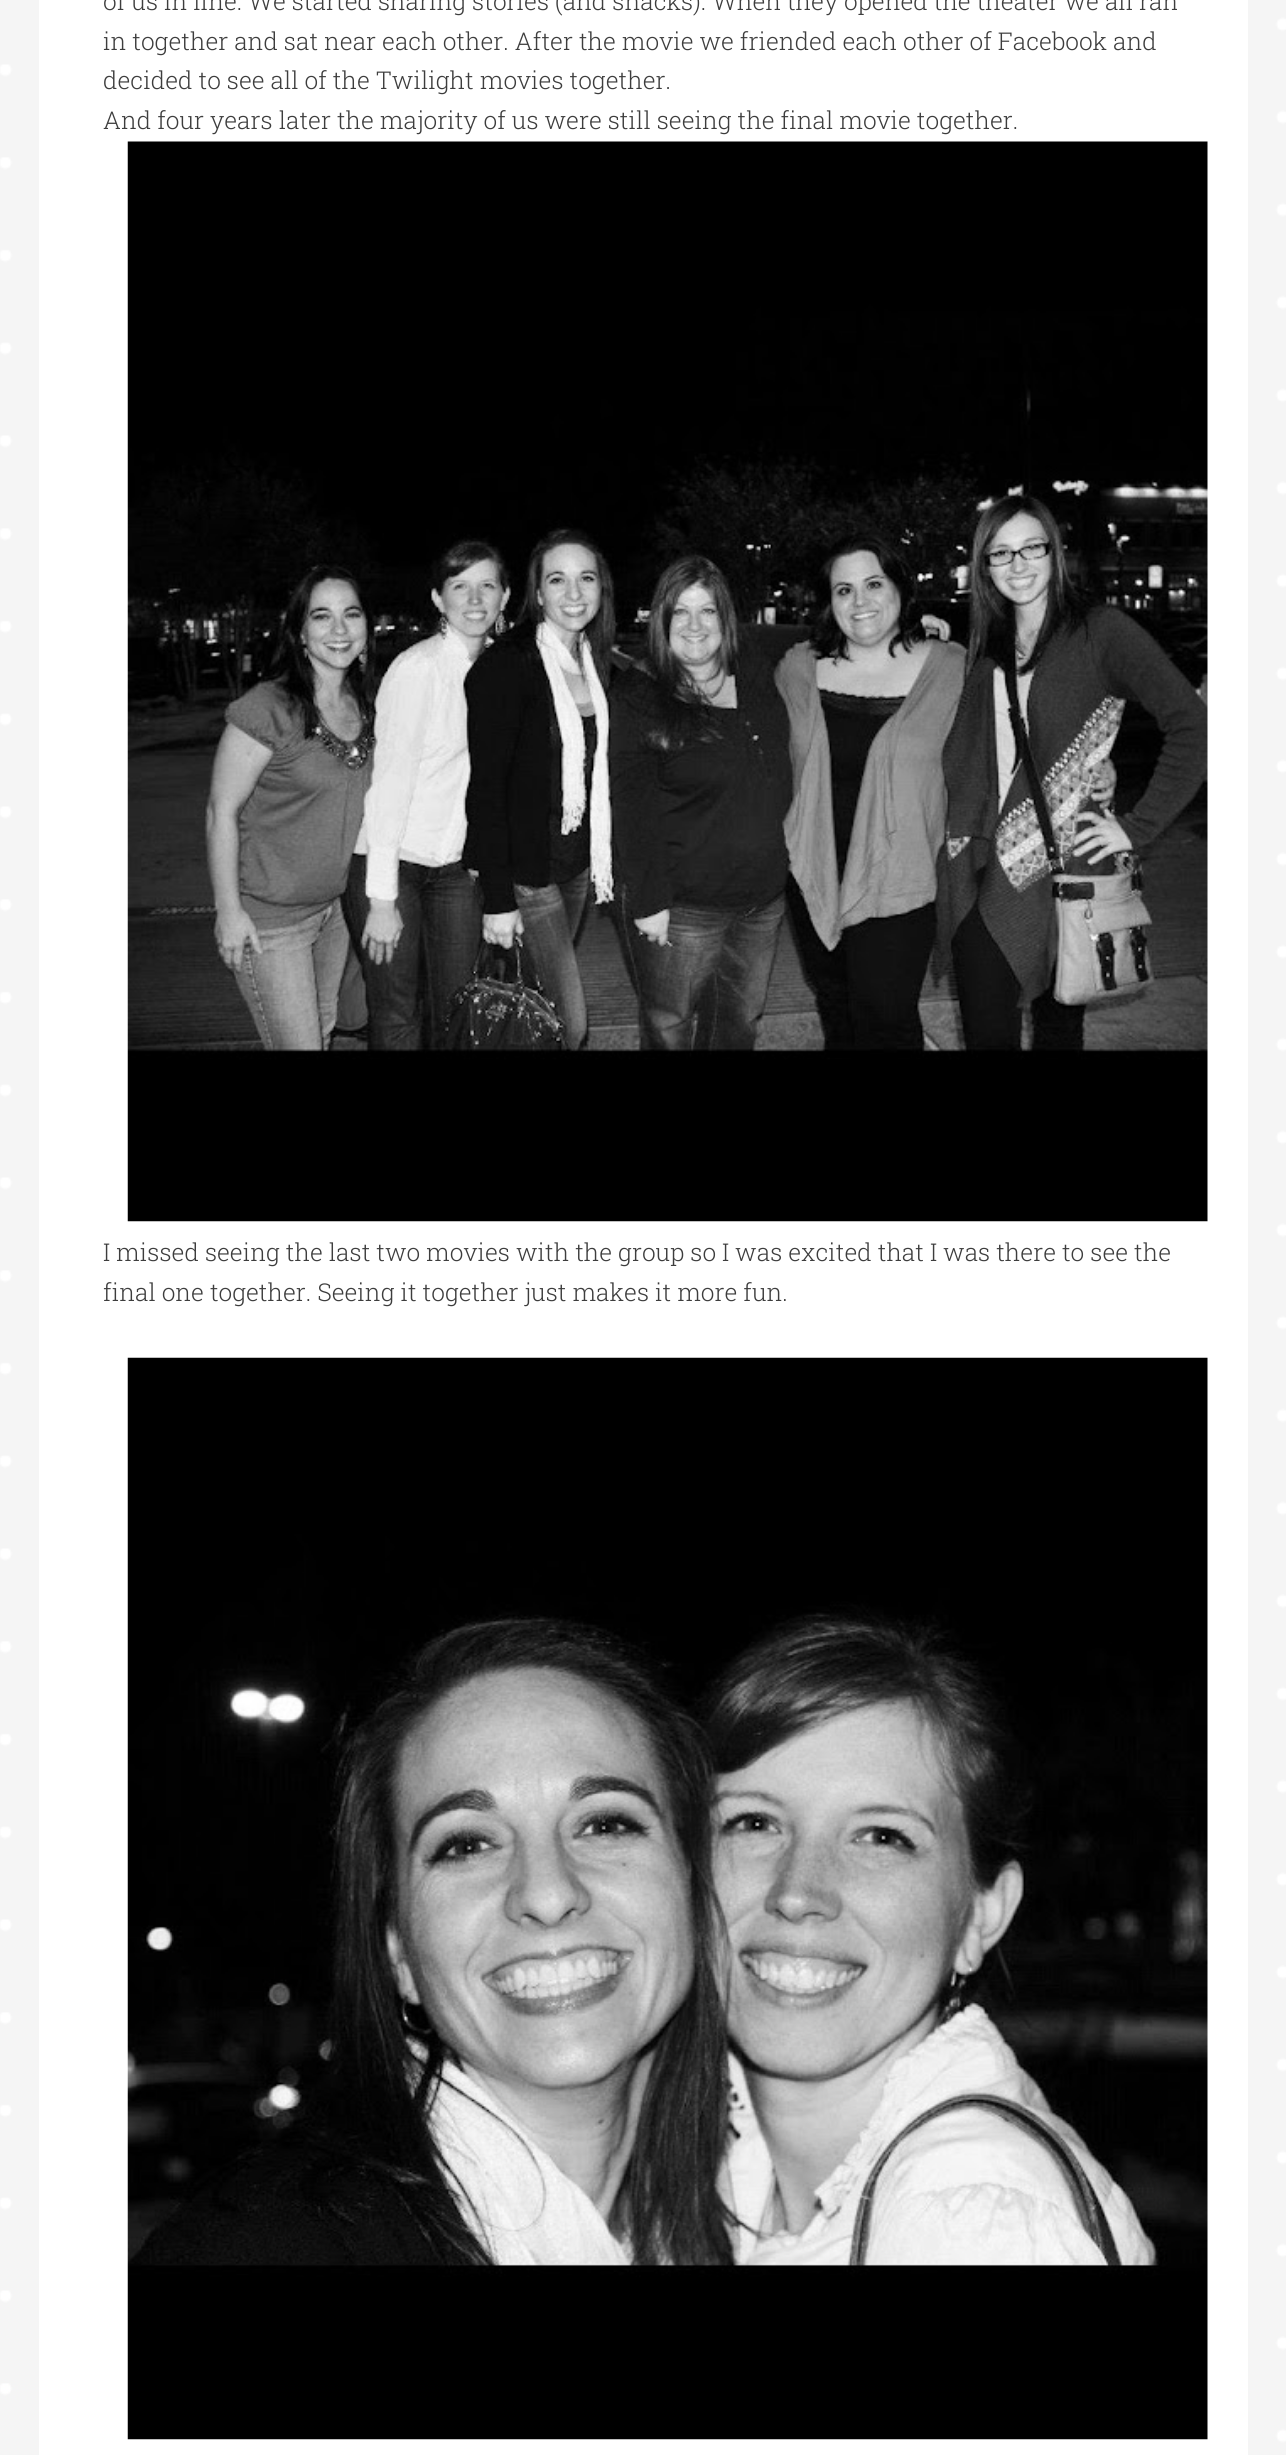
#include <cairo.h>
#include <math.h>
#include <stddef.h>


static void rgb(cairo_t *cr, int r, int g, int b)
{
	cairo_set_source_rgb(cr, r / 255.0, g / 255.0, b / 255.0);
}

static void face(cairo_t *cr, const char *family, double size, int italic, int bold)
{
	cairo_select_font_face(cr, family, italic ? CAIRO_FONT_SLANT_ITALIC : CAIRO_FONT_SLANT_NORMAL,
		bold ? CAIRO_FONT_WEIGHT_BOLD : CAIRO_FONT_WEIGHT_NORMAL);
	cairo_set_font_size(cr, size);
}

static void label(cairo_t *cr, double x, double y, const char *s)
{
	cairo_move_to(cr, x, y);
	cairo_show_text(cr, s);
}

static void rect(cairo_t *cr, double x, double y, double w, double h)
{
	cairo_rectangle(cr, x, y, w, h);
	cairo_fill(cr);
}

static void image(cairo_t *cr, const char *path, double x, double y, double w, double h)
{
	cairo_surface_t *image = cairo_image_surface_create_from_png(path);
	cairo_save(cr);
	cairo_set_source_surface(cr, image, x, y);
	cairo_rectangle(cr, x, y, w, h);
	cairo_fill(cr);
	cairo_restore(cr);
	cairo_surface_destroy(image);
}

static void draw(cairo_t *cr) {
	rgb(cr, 255, 255, 255);
	cairo_paint(cr);
	image(cr, "image0.png", 0, 0, 1286, 2455);
	rgb(cr, 255, 255, 255);
	rect(cr, 39, 0, 1209, 2455);
	face(cr, "Roboto Slab Light", 24.5, 0, 0);
	rgb(cr, 61, 61, 61);
	label(cr, 103, 10, "of us in line. We started sharing stories (and snacks). When they opened the theater we all ran");
	label(cr, 103, 50, "in together and sat near each other. After the movie we friended each other of Facebook and");
	label(cr, 103, 89, "decided to see all of the Twilight movies together.");
	label(cr, 103, 129, "And four years later the majority of us were still seeing the final movie together.");
	image(cr, "image1.png", 127, 141, 1081, 1081);
	label(cr, 103, 1261, "I missed seeing the last two movies with the group so I was excited that I was there to see the");
	label(cr, 103, 1301, "final one together. Seeing it together just makes it more fun.");
	image(cr, "image2.png", 127, 1357, 1081, 1083);
}

int main(void) {
	cairo_surface_t *surface = cairo_image_surface_create(CAIRO_FORMAT_RGB24, 1286, 2455);
	cairo_t *cr = cairo_create(surface);
	cairo_font_options_t *options = cairo_font_options_create();
	cairo_font_options_set_hint_metrics(options, CAIRO_HINT_METRICS_OFF);
	cairo_font_options_set_hint_style(options, CAIRO_HINT_STYLE_NONE);
	cairo_set_font_options(cr, options);
	cairo_set_miter_limit(cr, 4);
	draw(cr);
	cairo_surface_write_to_png(surface, "render.png");
	cairo_font_options_destroy(options);
	cairo_destroy(cr);
	cairo_surface_destroy(surface);
	return 0;
}
